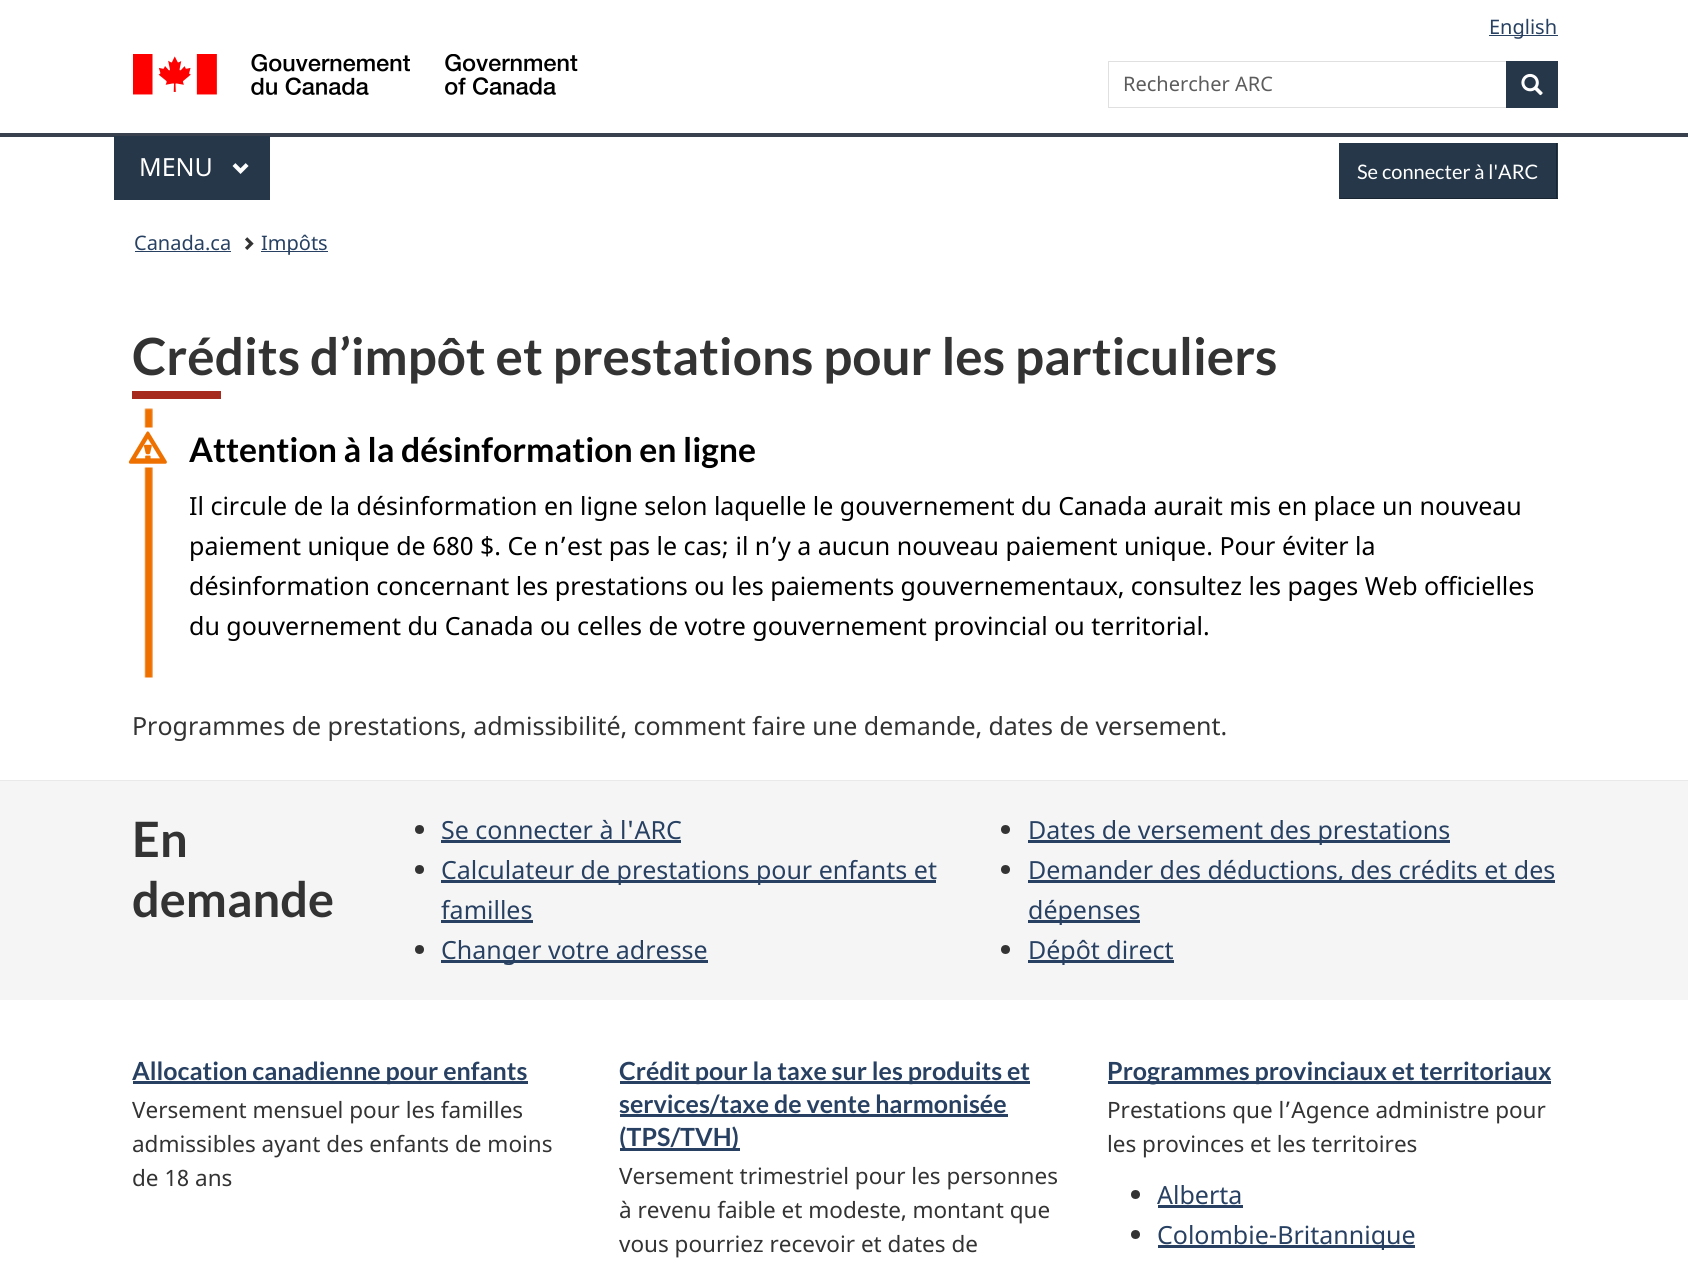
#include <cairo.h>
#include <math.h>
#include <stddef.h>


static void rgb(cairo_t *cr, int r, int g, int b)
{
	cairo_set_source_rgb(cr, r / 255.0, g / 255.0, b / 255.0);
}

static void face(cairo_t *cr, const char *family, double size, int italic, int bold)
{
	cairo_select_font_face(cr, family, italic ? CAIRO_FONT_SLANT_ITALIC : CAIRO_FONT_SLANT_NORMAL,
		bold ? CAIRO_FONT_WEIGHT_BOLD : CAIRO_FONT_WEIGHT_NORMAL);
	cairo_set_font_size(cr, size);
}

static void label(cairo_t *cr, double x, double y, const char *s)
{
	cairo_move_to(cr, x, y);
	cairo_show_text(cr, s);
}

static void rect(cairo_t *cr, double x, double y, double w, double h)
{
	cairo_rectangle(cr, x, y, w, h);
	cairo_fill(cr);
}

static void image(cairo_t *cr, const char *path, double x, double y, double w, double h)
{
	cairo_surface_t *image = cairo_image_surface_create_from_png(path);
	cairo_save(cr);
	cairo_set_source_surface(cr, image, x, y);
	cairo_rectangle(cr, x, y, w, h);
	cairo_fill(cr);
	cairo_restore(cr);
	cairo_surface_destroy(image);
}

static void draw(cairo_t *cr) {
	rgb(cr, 255, 255, 255);
	cairo_paint(cr);
	rgb(cr, 40, 65, 98);
	rect(cr, 1489, 35, 69, 1);
	face(cr, "Noto Sans", 20, 0, 0);
	label(cr, 1489, 34, "English");
	image(cr, "image0.png", 133, 54, 445, 41);
	cairo_rectangle(cr, 1108.5, 61.5, 449, 46);
	rgb(cr, 224, 224, 224);
	cairo_set_line_width(cr, 1);
	cairo_stroke(cr);
	rgb(cr, 92, 92, 92);
	label(cr, 1123, 91, "Rechercher ARC");
	rgb(cr, 38, 55, 74);
	rect(cr, 1506, 61, 52, 47);
	image(cr, "image1.png", 1521, 73, 22, 23);
	rgb(cr, 56, 65, 77);
	rect(cr, 0, 133, 1688, 4);
	rgb(cr, 38, 55, 74);
	rect(cr, 114, 136, 156, 64);
	face(cr, "Noto Sans", 25, 0, 0);
	rgb(cr, 255, 255, 255);
	label(cr, 139, 176, "MENU");
	image(cr, "image2.png", 232, 163, 17, 11);
	rgb(cr, 38, 55, 74);
	rect(cr, 1340, 143, 218, 55);
	rgb(cr, 25, 37, 49);
	rect(cr, 1556, 143, 1, 56);
	rect(cr, 1339, 198, 219, 1);
	rgb(cr, 38, 55, 74);
	rect(cr, 1339, 143, 1, 56);
	face(cr, "Lato", 20, 0, 0);
	rgb(cr, 255, 255, 255);
	label(cr, 1357, 179, "Se connecter à l'ARC");
	face(cr, "Noto Sans", 20, 0, 0);
	rgb(cr, 40, 65, 98);
	label(cr, 134, 250, "Canada.ca");
	rect(cr, 135, 251, 96, 1);
	image(cr, "image3.png", 245, 237, 9, 13);
	rect(cr, 261, 251, 67, 1);
	label(cr, 261, 250, "Impôts");
	rgb(cr, 166, 42, 30);
	rect(cr, 132, 391, 89, 8);
	face(cr, "Lato", 51.25, 0, 1);
	rgb(cr, 51, 51, 51);
	label(cr, 132, 375, "Crédits d’impôt et prestations pour les particuliers");
	image(cr, "image4.png", 144, 408, 9, 270);
	image(cr, "image5.png", 128, 431, 39, 33);
	face(cr, "Lato", 33.75, 0, 1);
	rgb(cr, 0, 0, 0);
	label(cr, 189, 462, "Attention à la désinformation en ligne");
	face(cr, "Noto Sans", 25, 0, 0);
	label(cr, 189, 515, "Il circule de la désinformation en ligne selon laquelle le gouvernement du Canada aurait mis en place un nouveau");
	label(cr, 189, 555, "paiement unique de 680 $. Ce n’est pas le cas; il n’y a aucun nouveau paiement unique. Pour éviter la");
	label(cr, 189, 595, "désinformation concernant les prestations ou les paiements gouvernementaux, consultez les pages Web officielles");
	label(cr, 189, 635, "du gouvernement du Canada ou celles de votre gouvernement provincial ou territorial.");
	rgb(cr, 51, 51, 51);
	label(cr, 132, 735, "Programmes de prestations, admissibilité, comment faire une demande, dates de versement.");
	rgb(cr, 245, 245, 245);
	rect(cr, 0, 781, 1688, 219);
	rgb(cr, 233, 233, 233);
	rect(cr, 0, 780, 1688, 1);
	face(cr, "Lato", 48.75, 0, 1);
	rgb(cr, 51, 51, 51);
	label(cr, 132, 857, "En");
	label(cr, 132, 917, "demande");
	cairo_new_path(cr);
	cairo_arc(cr, 419.5, 829.5, 4.5, 0, 2 * M_PI);
	cairo_fill(cr);
	face(cr, "Noto Sans", 25, 0, 0);
	rgb(cr, 40, 65, 98);
	label(cr, 441, 839, "Se connecter à l'ARC");
	rect(cr, 441, 840, 240, 3);
	rgb(cr, 51, 51, 51);
	cairo_new_path(cr);
	cairo_arc(cr, 1005.5, 829.5, 4.5, 0, 2 * M_PI);
	cairo_fill(cr);
	rgb(cr, 40, 65, 98);
	rect(cr, 1028, 840, 422, 3);
	label(cr, 1028, 839, "Dates de versement des prestations");
	rgb(cr, 51, 51, 51);
	cairo_new_path(cr);
	cairo_arc(cr, 419.5, 869.5, 4.5, 0, 2 * M_PI);
	cairo_fill(cr);
	rgb(cr, 40, 65, 98);
	rect(cr, 441, 880, 495, 3);
	label(cr, 441, 879, "Calculateur de prestations pour enfants et");
	label(cr, 441, 919, "familles");
	rect(cr, 441, 920, 92, 3);
	rgb(cr, 51, 51, 51);
	cairo_new_path(cr);
	cairo_arc(cr, 1005.5, 869.5, 4.5, 0, 2 * M_PI);
	cairo_fill(cr);
	rgb(cr, 40, 65, 98);
	rect(cr, 1028, 880, 527, 3);
	label(cr, 1028, 879, "Demander des déductions, des crédits et des");
	rect(cr, 1028, 920, 112, 3);
	label(cr, 1028, 919, "dépenses");
	rgb(cr, 51, 51, 51);
	cairo_new_path(cr);
	cairo_arc(cr, 419.5, 949.5, 4.5, 0, 2 * M_PI);
	cairo_fill(cr);
	rgb(cr, 40, 65, 98);
	rect(cr, 441, 960, 267, 3);
	label(cr, 441, 959, "Changer votre adresse");
	rgb(cr, 51, 51, 51);
	cairo_new_path(cr);
	cairo_arc(cr, 1005.5, 949.5, 4.5, 0, 2 * M_PI);
	cairo_fill(cr);
	rgb(cr, 40, 65, 98);
	rect(cr, 1028, 960, 146, 3);
	label(cr, 1028, 959, "Dépôt direct");
	rect(cr, 133, 1081, 395, 3);
	face(cr, "Lato", 25, 0, 1);
	label(cr, 132, 1080, "Allocation canadienne pour enfants");
	face(cr, "Noto Sans", 22.5, 0, 0);
	rgb(cr, 51, 51, 51);
	label(cr, 132, 1118, "Versement mensuel pour les familles");
	label(cr, 132, 1152, "admissibles ayant des enfants de moins");
	label(cr, 132, 1186, "de 18 ans");
	rgb(cr, 40, 65, 98);
	rect(cr, 620, 1081, 410, 3);
	face(cr, "Lato", 25, 0, 1);
	label(cr, 619, 1080, "Crédit pour la taxe sur les produits et");
	rect(cr, 620, 1114, 388, 3);
	label(cr, 619, 1113, "services/taxe de vente harmonisée");
	rect(cr, 620, 1148, 120, 3);
	label(cr, 619, 1146, "(TPS/TVH)");
	face(cr, "Noto Sans", 22.5, 0, 0);
	rgb(cr, 51, 51, 51);
	label(cr, 619, 1184, "Versement trimestriel pour les personnes");
	label(cr, 619, 1218, "à revenu faible et modeste, montant que");
	label(cr, 619, 1252, "vous pourriez recevoir et dates de");
	rgb(cr, 40, 65, 98);
	rect(cr, 1108, 1081, 443, 3);
	face(cr, "Lato", 25, 0, 1);
	label(cr, 1107, 1080, "Programmes provinciaux et territoriaux");
	face(cr, "Noto Sans", 22.5, 0, 0);
	rgb(cr, 51, 51, 51);
	label(cr, 1107, 1118, "Prestations que l’Agence administre pour");
	label(cr, 1107, 1152, "les provinces et les territoires");
	cairo_new_path(cr);
	cairo_arc(cr, 1135.5, 1194.5, 4.5, 0, 2 * M_PI);
	cairo_fill(cr);
	face(cr, "Noto Sans", 25, 0, 0);
	rgb(cr, 40, 65, 98);
	label(cr, 1157, 1204, "Alberta");
	rect(cr, 1158, 1205, 85, 3);
	rgb(cr, 51, 51, 51);
	cairo_new_path(cr);
	cairo_arc(cr, 1135.5, 1234.5, 4.5, 0, 2 * M_PI);
	cairo_fill(cr);
	rgb(cr, 40, 65, 98);
	rect(cr, 1158, 1245, 257, 3);
	label(cr, 1157, 1244, "Colombie-Britannique");
}

int main(void) {
	cairo_surface_t *surface = cairo_image_surface_create(CAIRO_FORMAT_RGB24, 1688, 1267);
	cairo_t *cr = cairo_create(surface);
	cairo_font_options_t *options = cairo_font_options_create();
	cairo_font_options_set_hint_metrics(options, CAIRO_HINT_METRICS_OFF);
	cairo_font_options_set_hint_style(options, CAIRO_HINT_STYLE_NONE);
	cairo_set_font_options(cr, options);
	cairo_set_miter_limit(cr, 4);
	draw(cr);
	cairo_surface_write_to_png(surface, "render.png");
	cairo_font_options_destroy(options);
	cairo_destroy(cr);
	cairo_surface_destroy(surface);
	return 0;
}
